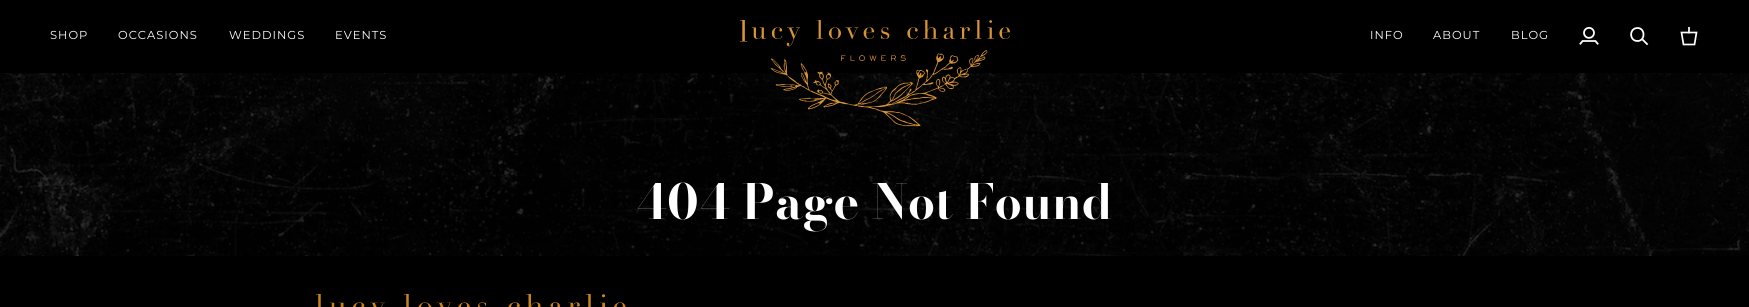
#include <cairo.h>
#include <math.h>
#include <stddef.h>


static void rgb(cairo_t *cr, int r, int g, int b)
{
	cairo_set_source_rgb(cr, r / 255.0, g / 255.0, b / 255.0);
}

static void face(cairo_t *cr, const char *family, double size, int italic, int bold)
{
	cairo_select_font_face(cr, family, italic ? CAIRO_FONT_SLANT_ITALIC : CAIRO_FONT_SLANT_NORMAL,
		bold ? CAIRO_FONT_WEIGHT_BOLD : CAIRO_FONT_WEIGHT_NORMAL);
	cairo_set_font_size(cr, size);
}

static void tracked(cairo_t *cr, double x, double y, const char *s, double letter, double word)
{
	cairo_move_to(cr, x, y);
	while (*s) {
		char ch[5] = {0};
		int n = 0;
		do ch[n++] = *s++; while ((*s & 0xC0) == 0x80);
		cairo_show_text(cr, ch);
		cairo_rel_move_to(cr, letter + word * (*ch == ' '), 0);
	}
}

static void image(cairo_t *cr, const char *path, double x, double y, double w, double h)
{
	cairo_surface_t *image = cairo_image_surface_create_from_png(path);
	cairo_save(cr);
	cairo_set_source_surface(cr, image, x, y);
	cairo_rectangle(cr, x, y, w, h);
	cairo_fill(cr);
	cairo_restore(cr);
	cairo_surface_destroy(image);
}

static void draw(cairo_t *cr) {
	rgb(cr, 0, 0, 0);
	cairo_paint(cr);
	face(cr, "Montserrat", 11.5, 0, 0);
	rgb(cr, 255, 255, 255);
	tracked(cr, 50, 39, "SHOP", 1, 0);
	tracked(cr, 118, 39, "OCCASIONS", 1, 0);
	tracked(cr, 229, 39, "WEDDINGS", 1, 0);
	tracked(cr, 335, 39, "EVENTS", 1, 0);
	image(cr, "image2.png", 0, 73, 1749, 183);
	image(cr, "image0.png", 740, 20, 270, 107);
	tracked(cr, 1370, 39, "INFO", 1, 0);
	tracked(cr, 1433, 39, "ABOUT", 1, 0);
	tracked(cr, 1511, 39, "BLOG", 1, 0);
	image(cr, "image1.png", 1579, 27, 20, 18);
	cairo_new_path(cr);
	cairo_move_to(cr, 1637.5, 41);
	cairo_curve_to(cr, 1645.5, 41, 1645.5, 28, 1637.5, 28);
	cairo_curve_to(cr, 1629, 28, 1629, 41, 1637.5, 41);
	cairo_close_path(cr);
	cairo_move_to(cr, 1647, 44);
	cairo_line_to(cr, 1642, 39);
	cairo_set_line_width(cr, 1.8);
	cairo_set_line_cap(cr, CAIRO_LINE_CAP_SQUARE);
	cairo_stroke(cr);
	cairo_new_path(cr);
	cairo_move_to(cr, 1681.5, 32.5);
	cairo_line_to(cr, 1696.5, 32.5);
	cairo_line_to(cr, 1694.5, 44.5);
	cairo_line_to(cr, 1683.5, 44.5);
	cairo_close_path(cr);
	cairo_move_to(cr, 1689, 33.5);
	cairo_line_to(cr, 1689, 27);
	cairo_set_line_width(cr, 1.7);
	cairo_set_line_cap(cr, CAIRO_LINE_CAP_BUTT);
	cairo_stroke(cr);
	face(cr, "Bodoni Moda", 48, 0, 1);
	tracked(cr, 636, 219, "404 Page Not Found", 0.3, 0);
	image(cr, "image3.png", 316, 294, 310, 13);
}

int main(void) {
	cairo_surface_t *surface = cairo_image_surface_create(CAIRO_FORMAT_RGB24, 1749, 307);
	cairo_t *cr = cairo_create(surface);
	cairo_font_options_t *options = cairo_font_options_create();
	cairo_font_options_set_hint_metrics(options, CAIRO_HINT_METRICS_OFF);
	cairo_font_options_set_hint_style(options, CAIRO_HINT_STYLE_NONE);
	cairo_set_font_options(cr, options);
	cairo_set_miter_limit(cr, 4);
	draw(cr);
	cairo_surface_write_to_png(surface, "render.png");
	cairo_font_options_destroy(options);
	cairo_destroy(cr);
	cairo_surface_destroy(surface);
	return 0;
}
